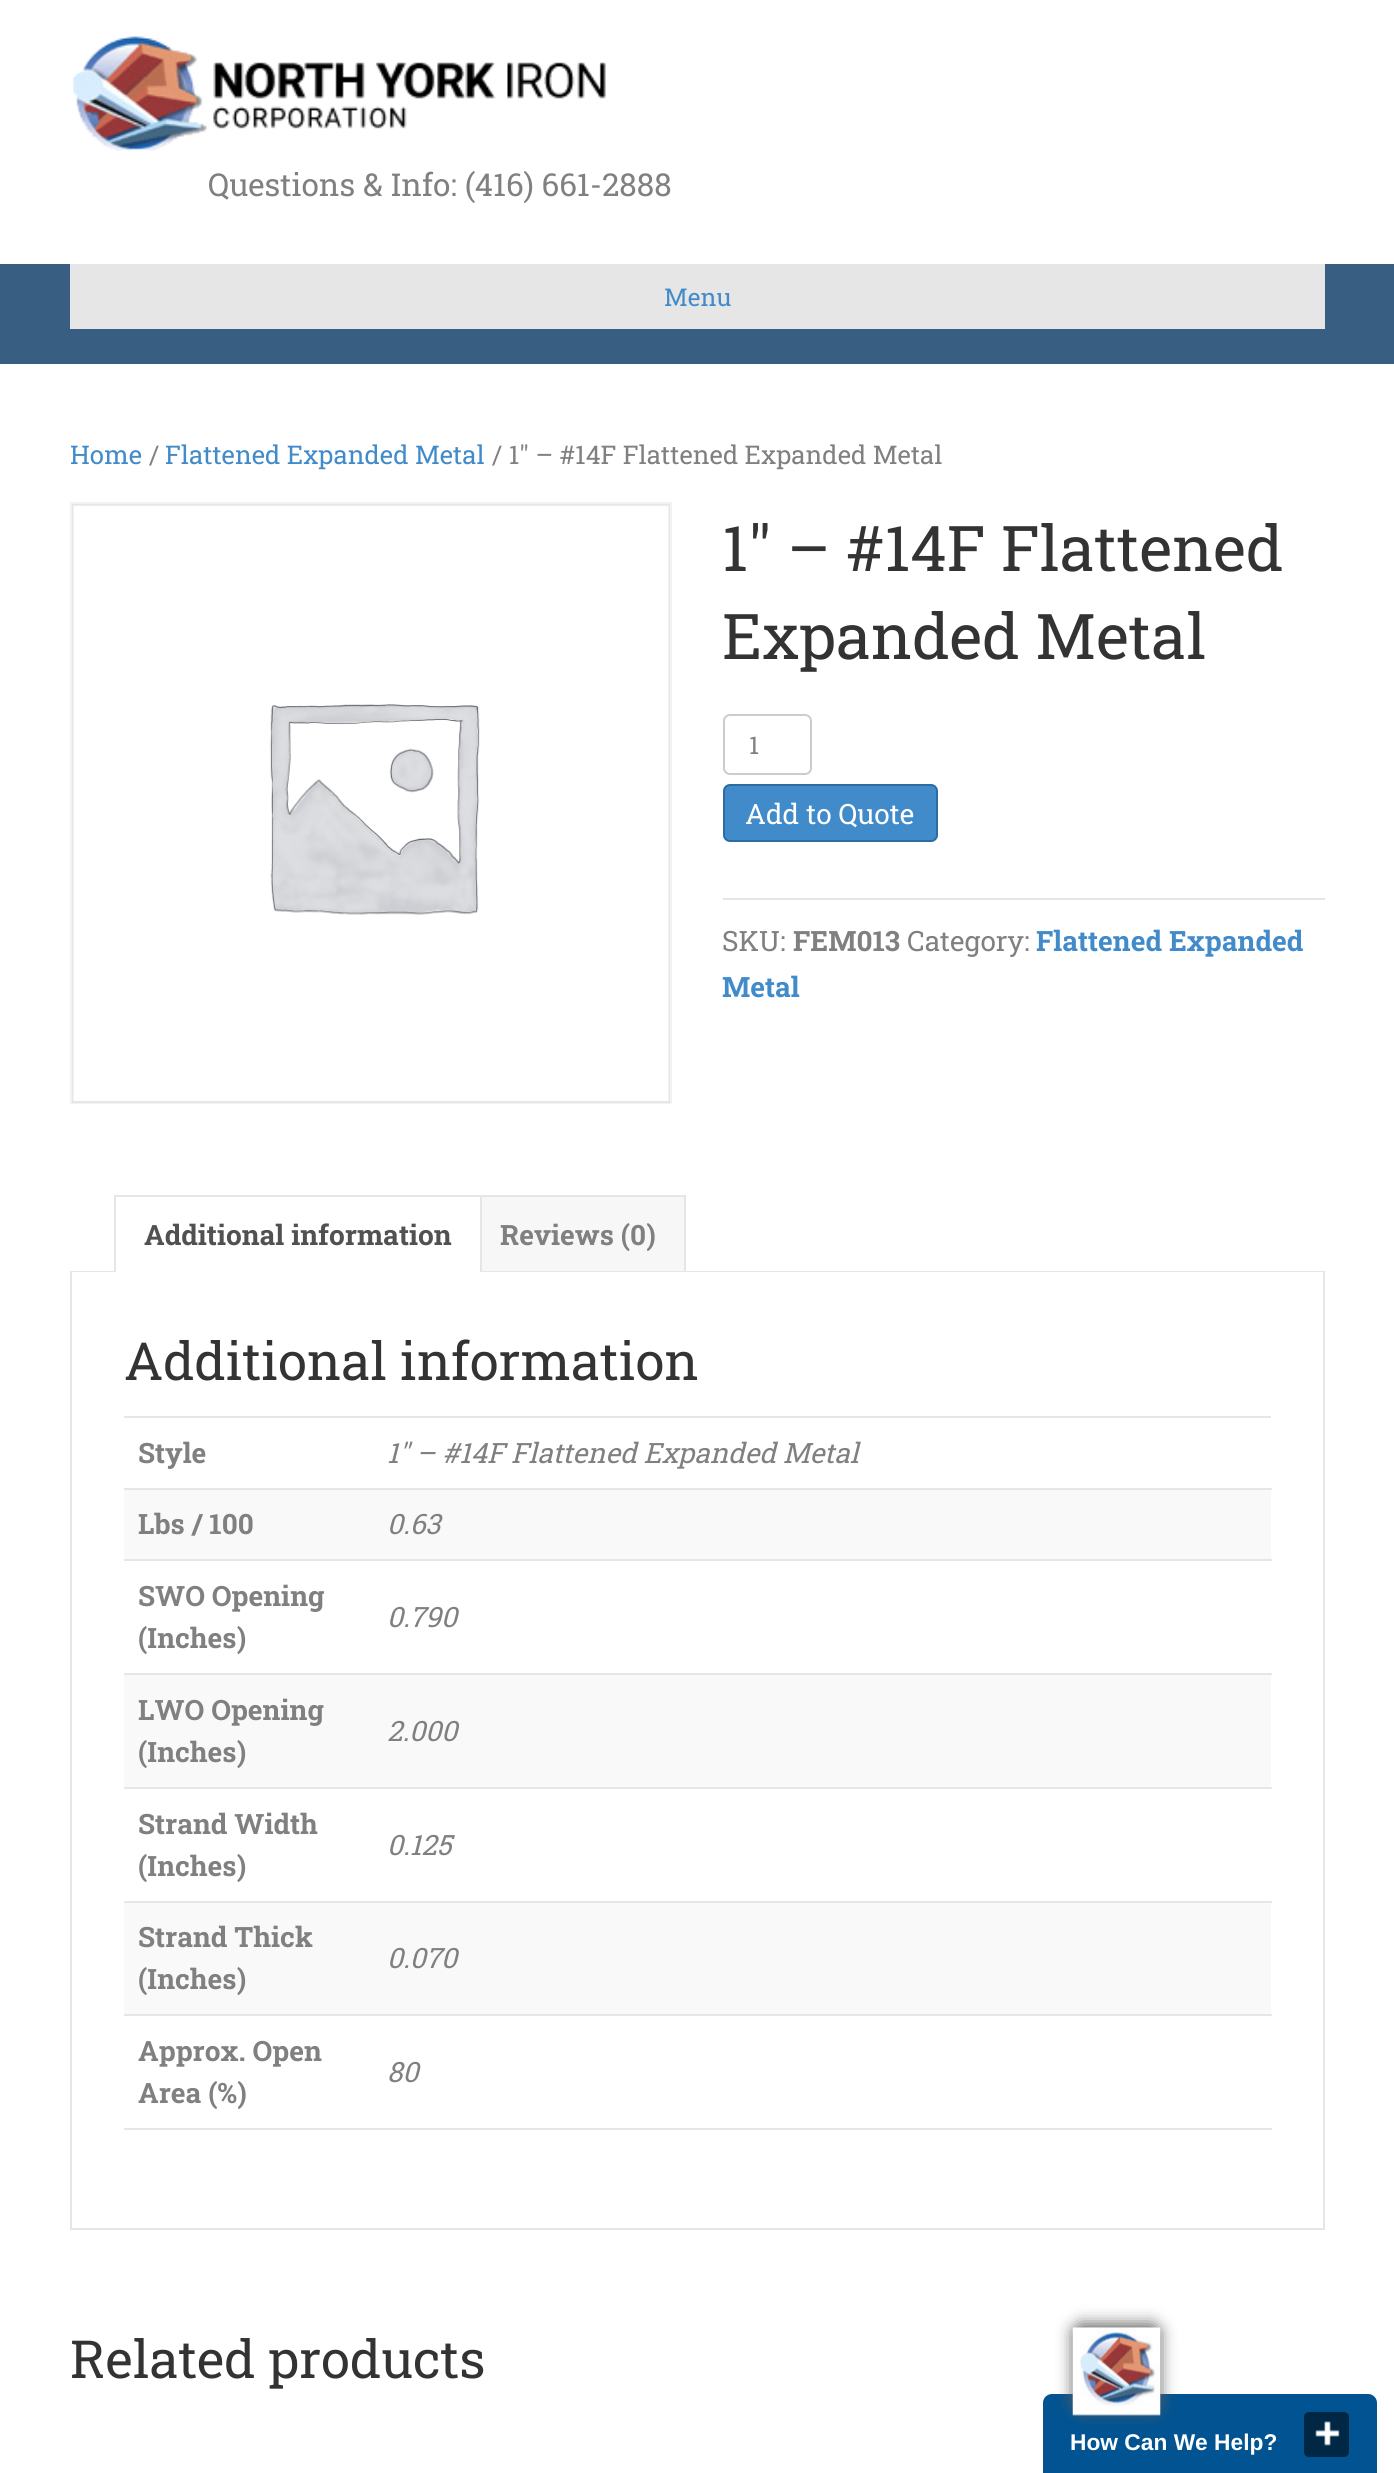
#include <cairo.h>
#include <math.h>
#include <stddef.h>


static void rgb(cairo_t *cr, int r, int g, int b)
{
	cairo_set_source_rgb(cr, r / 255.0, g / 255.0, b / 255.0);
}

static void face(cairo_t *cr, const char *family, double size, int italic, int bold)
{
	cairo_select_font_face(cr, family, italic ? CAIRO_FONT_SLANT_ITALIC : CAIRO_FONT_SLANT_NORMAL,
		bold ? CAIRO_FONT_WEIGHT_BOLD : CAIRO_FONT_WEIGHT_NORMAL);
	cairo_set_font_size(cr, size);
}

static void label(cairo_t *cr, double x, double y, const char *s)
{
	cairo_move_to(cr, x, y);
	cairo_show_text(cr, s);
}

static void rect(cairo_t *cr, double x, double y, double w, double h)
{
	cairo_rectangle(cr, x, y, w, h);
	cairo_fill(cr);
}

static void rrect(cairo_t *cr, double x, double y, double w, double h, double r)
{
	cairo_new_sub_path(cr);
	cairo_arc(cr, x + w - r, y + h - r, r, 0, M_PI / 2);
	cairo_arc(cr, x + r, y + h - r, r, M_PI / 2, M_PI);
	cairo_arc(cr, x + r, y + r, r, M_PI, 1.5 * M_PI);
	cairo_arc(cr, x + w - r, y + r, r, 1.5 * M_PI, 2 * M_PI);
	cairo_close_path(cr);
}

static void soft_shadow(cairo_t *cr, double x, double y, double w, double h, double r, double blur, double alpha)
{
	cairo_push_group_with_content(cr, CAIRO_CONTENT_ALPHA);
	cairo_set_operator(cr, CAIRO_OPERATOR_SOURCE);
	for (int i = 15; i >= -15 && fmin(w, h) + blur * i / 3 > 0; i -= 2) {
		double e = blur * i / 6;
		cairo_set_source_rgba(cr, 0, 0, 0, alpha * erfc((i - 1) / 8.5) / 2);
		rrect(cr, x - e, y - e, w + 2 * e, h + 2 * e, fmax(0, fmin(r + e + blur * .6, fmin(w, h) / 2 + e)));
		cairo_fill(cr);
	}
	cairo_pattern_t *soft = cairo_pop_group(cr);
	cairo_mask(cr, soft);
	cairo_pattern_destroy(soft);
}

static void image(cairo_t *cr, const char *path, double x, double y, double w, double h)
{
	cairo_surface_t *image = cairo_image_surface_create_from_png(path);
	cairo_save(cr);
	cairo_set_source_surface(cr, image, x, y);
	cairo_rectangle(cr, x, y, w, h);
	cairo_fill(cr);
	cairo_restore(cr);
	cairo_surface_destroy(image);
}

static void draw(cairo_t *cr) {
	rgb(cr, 255, 255, 255);
	cairo_paint(cr);
	image(cr, "image0.png", 72, 36, 534, 115);
	face(cr, "Roboto Slab", 31.5, 0, 0);
	rgb(cr, 128, 128, 128);
	label(cr, 208, 196, "Questions & Info: (416) 661-2888");
	rgb(cr, 56, 95, 130);
	rect(cr, 0, 264, 1394, 100);
	rgb(cr, 230, 230, 230);
	rect(cr, 70, 264, 1255, 65);
	face(cr, "Roboto Slab", 24.5, 0, 0);
	rgb(cr, 66, 139, 202);
	label(cr, 664, 306, "Menu");
	face(cr, "Roboto Slab", 25.75, 0, 0);
	label(cr, 70, 464, "Home");
	rgb(cr, 128, 128, 128);
	label(cr, 149, 464, "/");
	rgb(cr, 66, 139, 202);
	label(cr, 165, 464, "Flattened Expanded Metal");
	rgb(cr, 128, 128, 128);
	label(cr, 492, 464, "/ 1″ – #14F Flattened Expanded Metal");
	cairo_rectangle(cr, 71, 503, 600, 600);
	rgb(cr, 242, 242, 242);
	cairo_stroke(cr);
	cairo_rectangle(cr, 73, 505, 596, 597);
	rgb(cr, 230, 230, 230);
	cairo_stroke(cr);
	image(cr, "image1.png", 73, 505, 596, 596);
	face(cr, "Roboto Slab", 63, 0, 0);
	rgb(cr, 51, 51, 51);
	label(cr, 722, 571, "1″ – #14F Flattened");
	label(cr, 722, 659, "Expanded Metal");
	rrect(cr, 724, 715, 87, 59, 6);
	rgb(cr, 204, 204, 204);
	cairo_stroke(cr);
	face(cr, "Roboto Slab", 24.5, 0, 0);
	rgb(cr, 128, 128, 128);
	label(cr, 749, 754, "1");
	rgb(cr, 66, 139, 202);
	rrect(cr, 724, 785, 213, 56, 6);
	cairo_fill_preserve(cr);
	rgb(cr, 45, 108, 162);
	cairo_stroke(cr);
	face(cr, "Roboto Slab", 28, 0, 0);
	rgb(cr, 255, 255, 255);
	label(cr, 745, 824, "Add to Quote");
	rgb(cr, 230, 230, 230);
	rect(cr, 723, 898, 602, 2);
	rgb(cr, 128, 128, 128);
	label(cr, 722, 951, "SKU:");
	face(cr, "Roboto Slab", 28, 0, 1);
	label(cr, 793, 951, "FEM013");
	face(cr, "Roboto Slab", 28, 0, 0);
	label(cr, 907, 951, "Category:");
	face(cr, "Roboto Slab", 28, 0, 1);
	rgb(cr, 66, 139, 202);
	label(cr, 1036, 951, "Flattened Expanded");
	label(cr, 722, 997, "Metal");
	rgb(cr, 230, 230, 230);
	rect(cr, 482, 1195, 204, 2);
	rect(cr, 684, 1195, 2, 77);
	rect(cr, 70, 1271, 1255, 1);
	rgb(cr, 255, 255, 255);
	rect(cr, 116, 1271, 364, 1);
	rgb(cr, 230, 230, 230);
	rect(cr, 114, 1195, 367, 2);
	rect(cr, 480, 1195, 2, 77);
	rect(cr, 114, 1195, 2, 77);
	rgb(cr, 81, 81, 81);
	label(cr, 144, 1245, "Additional information");
	rgb(cr, 247, 247, 247);
	rect(cr, 482, 1197, 202, 74);
	rgb(cr, 128, 128, 128);
	label(cr, 500, 1245, "Reviews (0)");
	rgb(cr, 230, 230, 230);
	rect(cr, 1323, 1272, 2, 958);
	rect(cr, 70, 2228, 1255, 2);
	rect(cr, 70, 1272, 2, 958);
	face(cr, "Roboto Slab", 52.5, 0, 0);
	rgb(cr, 51, 51, 51);
	label(cr, 124, 1380, "Additional information");
	rgb(cr, 230, 230, 230);
	rect(cr, 124, 1416, 1147, 2);
	face(cr, "Roboto Slab", 28, 0, 1);
	rgb(cr, 128, 128, 128);
	label(cr, 138, 1463, "Style");
	rgb(cr, 230, 230, 230);
	rect(cr, 124, 1488, 1148, 2);
	face(cr, "Roboto Slab", 28, 1, 0);
	rgb(cr, 128, 128, 128);
	label(cr, 387, 1463, "1\" – #14F Flattened Expanded Metal");
	rgb(cr, 249, 249, 249);
	rect(cr, 124, 1490, 1147, 69);
	face(cr, "Roboto Slab", 28, 0, 1);
	rgb(cr, 128, 128, 128);
	label(cr, 138, 1534, "Lbs / 100");
	rgb(cr, 230, 230, 230);
	rect(cr, 124, 1559, 1148, 2);
	face(cr, "Roboto Slab", 28, 1, 0);
	rgb(cr, 128, 128, 128);
	label(cr, 387, 1534, "0.63");
	face(cr, "Roboto Slab", 28, 0, 1);
	label(cr, 138, 1606, "SWO Opening");
	label(cr, 138, 1648, "(Inches)");
	rgb(cr, 230, 230, 230);
	rect(cr, 124, 1673, 1148, 2);
	face(cr, "Roboto Slab", 28, 1, 0);
	rgb(cr, 128, 128, 128);
	label(cr, 387, 1627, "0.790");
	rgb(cr, 249, 249, 249);
	rect(cr, 124, 1675, 1147, 112);
	face(cr, "Roboto Slab", 28, 0, 1);
	rgb(cr, 128, 128, 128);
	label(cr, 138, 1720, "LWO Opening");
	label(cr, 138, 1762, "(Inches)");
	rgb(cr, 230, 230, 230);
	rect(cr, 124, 1787, 1148, 2);
	face(cr, "Roboto Slab", 28, 1, 0);
	rgb(cr, 128, 128, 128);
	label(cr, 387, 1741, "2.000");
	face(cr, "Roboto Slab", 28, 0, 1);
	label(cr, 138, 1834, "Strand Width");
	label(cr, 138, 1876, "(Inches)");
	rgb(cr, 230, 230, 230);
	rect(cr, 124, 1901, 1148, 2);
	face(cr, "Roboto Slab", 28, 1, 0);
	rgb(cr, 128, 128, 128);
	label(cr, 387, 1855, "0.125");
	rgb(cr, 249, 249, 249);
	rect(cr, 124, 1903, 1147, 111);
	face(cr, "Roboto Slab", 28, 0, 1);
	rgb(cr, 128, 128, 128);
	label(cr, 138, 1947, "Strand Thick");
	label(cr, 138, 1989, "(Inches)");
	rgb(cr, 230, 230, 230);
	rect(cr, 124, 2014, 1148, 2);
	face(cr, "Roboto Slab", 28, 1, 0);
	rgb(cr, 128, 128, 128);
	label(cr, 387, 1968, "0.070");
	face(cr, "Roboto Slab", 28, 0, 1);
	label(cr, 138, 2061, "Approx. Open");
	label(cr, 138, 2103, "Area (%)");
	rgb(cr, 230, 230, 230);
	rect(cr, 124, 2128, 1148, 2);
	face(cr, "Roboto Slab", 28, 1, 0);
	rgb(cr, 128, 128, 128);
	label(cr, 387, 2082, "80");
	face(cr, "Roboto Slab", 52.5, 0, 0);
	rgb(cr, 51, 51, 51);
	label(cr, 70, 2378, "Related products");
	rgb(cr, 1, 83, 145);
	cairo_new_path(cr);
	cairo_move_to(cr, 1052, 2394);
	cairo_line_to(cr, 1368, 2394);
	cairo_curve_to(cr, 1373, 2394, 1377, 2398, 1377, 2403);
	cairo_line_to(cr, 1377, 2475);
	cairo_line_to(cr, 1043, 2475);
	cairo_line_to(cr, 1043, 2403);
	cairo_curve_to(cr, 1043, 2398, 1047, 2394, 1052, 2394);
	cairo_close_path(cr);
	cairo_fill(cr);
	rgb(cr, 95, 95, 94);
	soft_shadow(cr, 1073, 2324, 87, 88, 9, 8, 1);
	image(cr, "image2.png", 1072, 2327, 89, 89);
	rgb(cr, 0, 40, 69);
	rrect(cr, 1304, 2412, 45, 45, 5);
	cairo_fill(cr);
	image(cr, "image3.png", 1315, 2421, 25, 25);
	face(cr, "Liberation Sans", 22.75, 0, 1);
	rgb(cr, 255, 255, 255);
	label(cr, 1070, 2450, "How Can We Help?");
}

int main(void) {
	cairo_surface_t *surface = cairo_image_surface_create(CAIRO_FORMAT_RGB24, 1394, 2473);
	cairo_t *cr = cairo_create(surface);
	cairo_font_options_t *options = cairo_font_options_create();
	cairo_font_options_set_hint_metrics(options, CAIRO_HINT_METRICS_OFF);
	cairo_font_options_set_hint_style(options, CAIRO_HINT_STYLE_NONE);
	cairo_set_font_options(cr, options);
	cairo_set_miter_limit(cr, 4);
	draw(cr);
	cairo_surface_write_to_png(surface, "render.png");
	cairo_font_options_destroy(options);
	cairo_destroy(cr);
	cairo_surface_destroy(surface);
	return 0;
}
